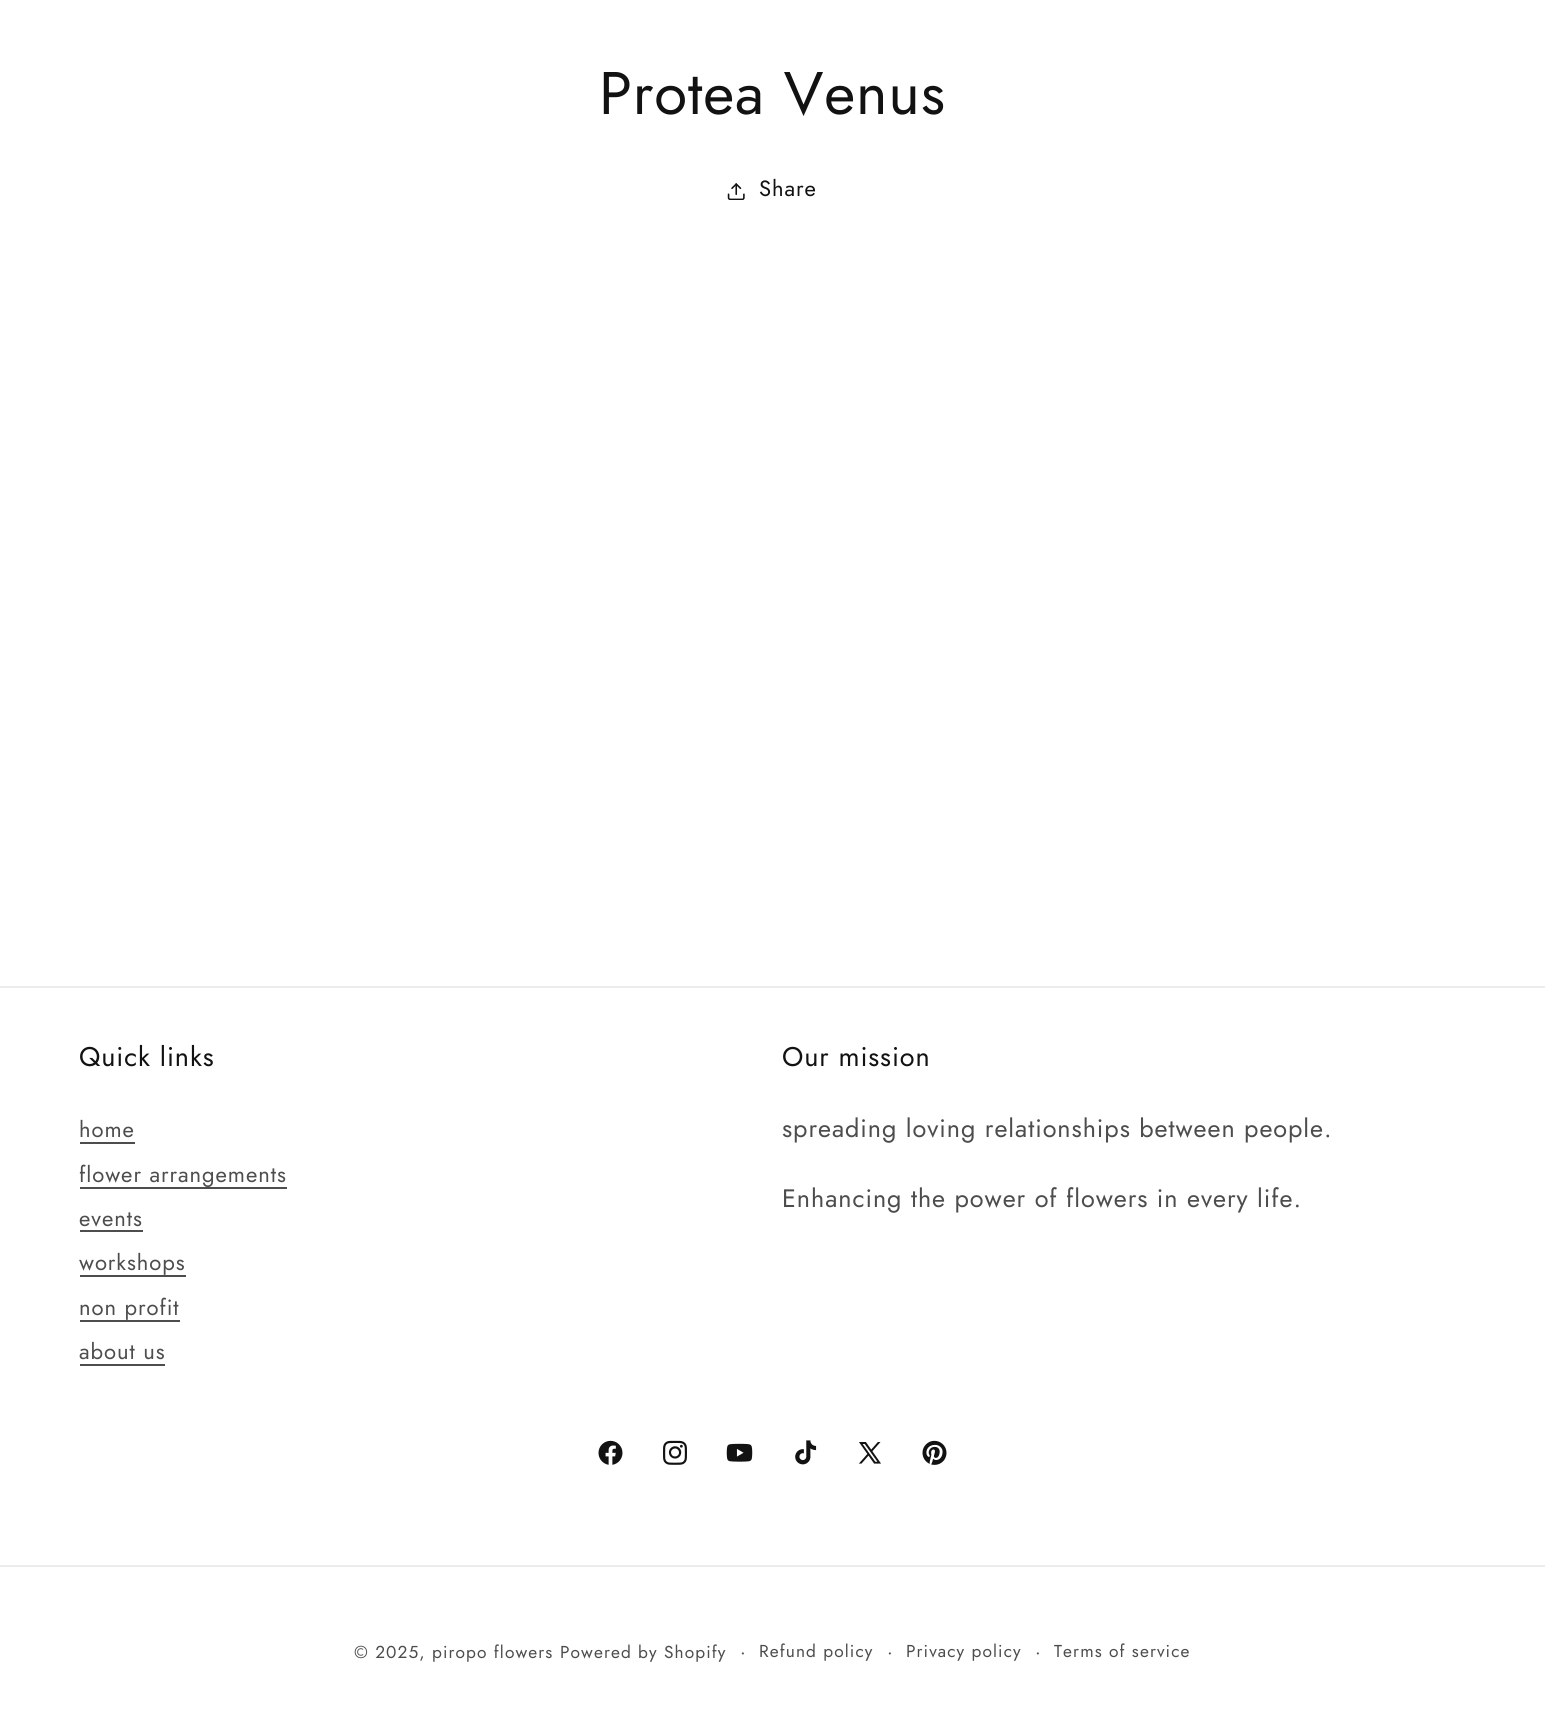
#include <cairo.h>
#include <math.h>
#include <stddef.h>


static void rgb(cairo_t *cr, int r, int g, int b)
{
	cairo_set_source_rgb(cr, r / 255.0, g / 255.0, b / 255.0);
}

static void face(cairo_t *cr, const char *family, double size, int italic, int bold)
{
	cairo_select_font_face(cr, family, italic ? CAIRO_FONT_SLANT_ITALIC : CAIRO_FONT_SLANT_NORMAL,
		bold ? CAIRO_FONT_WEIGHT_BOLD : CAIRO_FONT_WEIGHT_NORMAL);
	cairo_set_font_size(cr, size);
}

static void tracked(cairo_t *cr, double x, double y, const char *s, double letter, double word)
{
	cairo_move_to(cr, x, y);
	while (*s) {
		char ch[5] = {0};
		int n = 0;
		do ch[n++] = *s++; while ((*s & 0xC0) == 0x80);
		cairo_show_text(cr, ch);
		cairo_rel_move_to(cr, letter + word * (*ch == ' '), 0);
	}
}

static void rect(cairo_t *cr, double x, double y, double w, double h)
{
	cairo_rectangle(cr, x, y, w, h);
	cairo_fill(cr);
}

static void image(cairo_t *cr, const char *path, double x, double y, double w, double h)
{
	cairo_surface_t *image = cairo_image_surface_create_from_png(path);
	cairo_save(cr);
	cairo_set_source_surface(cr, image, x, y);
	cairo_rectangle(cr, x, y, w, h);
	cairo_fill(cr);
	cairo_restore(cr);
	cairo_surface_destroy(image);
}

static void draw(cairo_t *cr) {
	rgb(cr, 255, 255, 255);
	cairo_paint(cr);
	face(cr, "Jost", 60, 0, 0);
	rgb(cr, 18, 18, 18);
	tracked(cr, 599, 114, "Protea Venus", 0.9, 0);
	image(cr, "image0.png", 727, 183, 18, 17);
	face(cr, "Jost", 22, 0, 0);
	tracked(cr, 759, 196, "Share", 0.95, 0);
	rgb(cr, 236, 236, 236);
	rect(cr, 0, 986, 1545, 2);
	face(cr, "Jost", 27, 0, 0);
	rgb(cr, 18, 18, 18);
	tracked(cr, 79, 1066, "Quick links", 0.9, 0);
	face(cr, "Jost", 22, 0, 0);
	rgb(cr, 77, 77, 77);
	tracked(cr, 79, 1137, "home", 0.95, 0);
	rect(cr, 80, 1142, 55, 2);
	rect(cr, 80, 1187, 207, 2);
	tracked(cr, 79, 1182, "flower arrangements", 0.95, 0);
	tracked(cr, 79, 1226, "events", 0.95, 0);
	rect(cr, 80, 1230, 63, 2);
	tracked(cr, 79, 1270, "workshops", 0.95, 0);
	rect(cr, 80, 1275, 106, 2);
	tracked(cr, 79, 1315, "non profit", 0.95, 0);
	rect(cr, 80, 1320, 100, 2);
	tracked(cr, 79, 1359, "about us", 0.95, 0);
	rect(cr, 80, 1364, 85, 2);
	face(cr, "Jost", 27, 0, 0);
	rgb(cr, 18, 18, 18);
	tracked(cr, 782, 1066, "Our mission", 0.9, 0);
	face(cr, "Jost", 25.2, 0, 0);
	rgb(cr, 77, 77, 77);
	tracked(cr, 782, 1137, "spreading loving relationships between people.", 0.95, 0);
	tracked(cr, 782, 1207, "Enhancing the power of flowers in every life.", 0.95, 0);
	image(cr, "image1.png", 598, 1440, 25, 25);
	image(cr, "image2.png", 663, 1440, 24, 25);
	image(cr, "image3.png", 726, 1443, 27, 19);
	image(cr, "image4.png", 795, 1440, 22, 25);
	image(cr, "image5.png", 859, 1442, 22, 22);
	image(cr, "image6.png", 922, 1440, 25, 25);
	rgb(cr, 236, 236, 236);
	rect(cr, 0, 1565, 1545, 2);
	face(cr, "Jost", 17.25, 0, 0);
	rgb(cr, 77, 77, 77);
	tracked(cr, 354, 1658, "© 2025, piropo flowers", 1.1, 0);
	tracked(cr, 560, 1658, "Powered by Shopify", 1.1, 0);
	face(cr, "Jost", 19, 0, 0);
	tracked(cr, 740, 1658, "·", 1.1, 0);
	face(cr, "Jost", 17.25, 0, 0);
	tracked(cr, 759, 1657, "Refund policy", 1.1, 0);
	face(cr, "Jost", 19, 0, 0);
	tracked(cr, 887, 1658, "·", 1.1, 0);
	face(cr, "Jost", 17.25, 0, 0);
	tracked(cr, 906, 1657, "Privacy policy", 1.1, 0);
	face(cr, "Jost", 19, 0, 0);
	tracked(cr, 1035, 1658, "·", 1.1, 0);
	face(cr, "Jost", 17.25, 0, 0);
	tracked(cr, 1054, 1657, "Terms of service", 1.1, 0);
}

int main(void) {
	cairo_surface_t *surface = cairo_image_surface_create(CAIRO_FORMAT_RGB24, 1545, 1721);
	cairo_t *cr = cairo_create(surface);
	cairo_font_options_t *options = cairo_font_options_create();
	cairo_font_options_set_hint_metrics(options, CAIRO_HINT_METRICS_OFF);
	cairo_font_options_set_hint_style(options, CAIRO_HINT_STYLE_NONE);
	cairo_set_font_options(cr, options);
	cairo_set_miter_limit(cr, 4);
	draw(cr);
	cairo_surface_write_to_png(surface, "render.png");
	cairo_font_options_destroy(options);
	cairo_destroy(cr);
	cairo_surface_destroy(surface);
	return 0;
}
